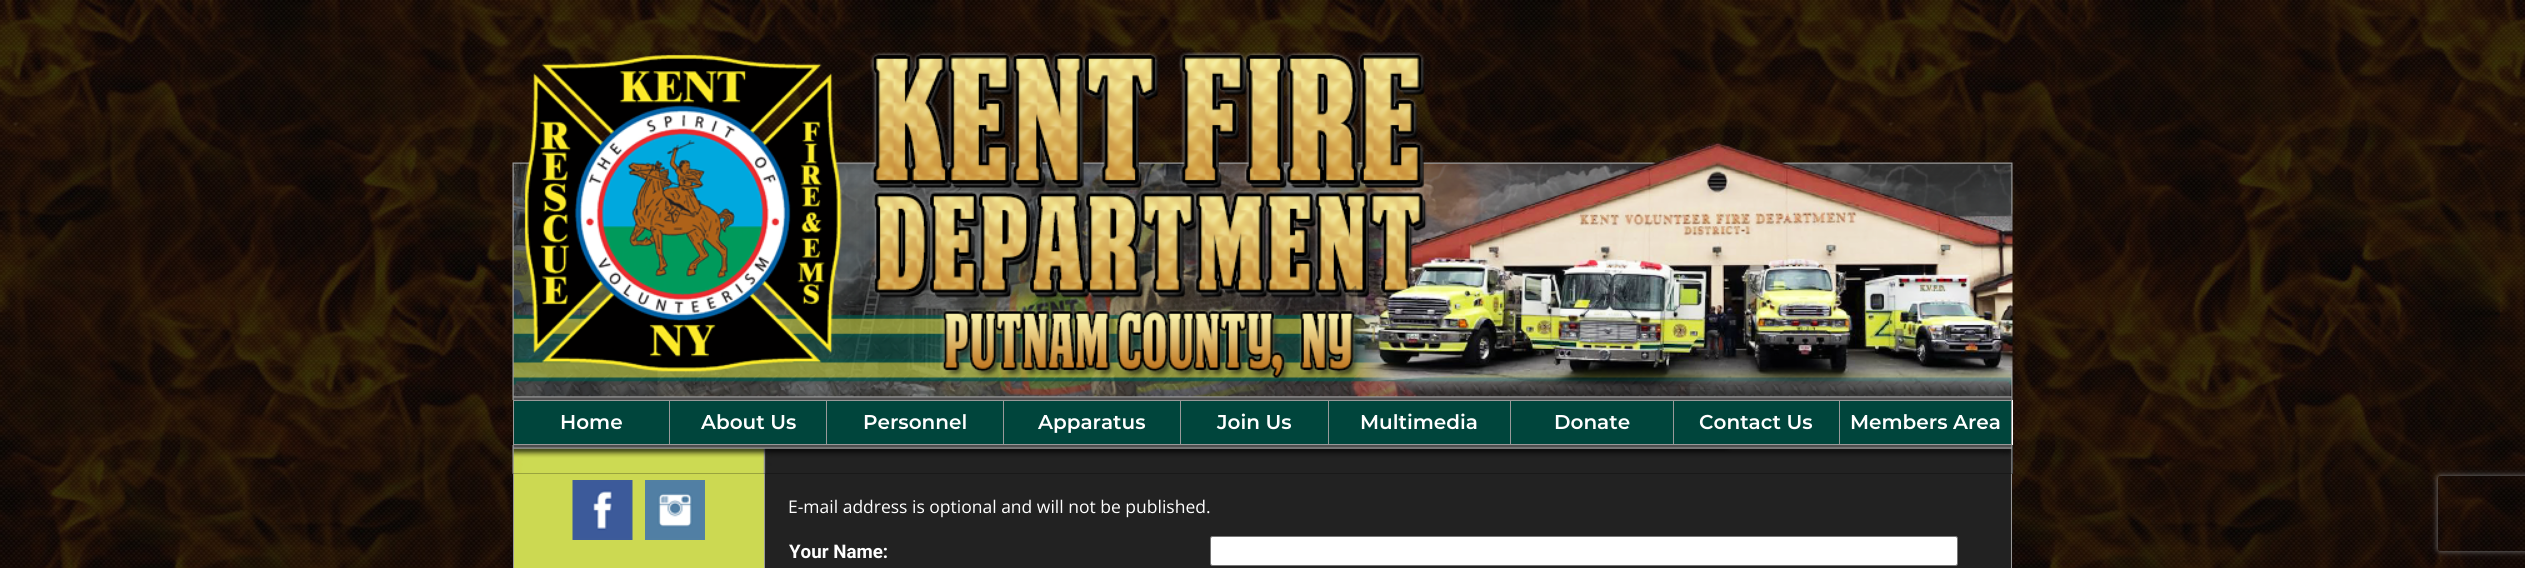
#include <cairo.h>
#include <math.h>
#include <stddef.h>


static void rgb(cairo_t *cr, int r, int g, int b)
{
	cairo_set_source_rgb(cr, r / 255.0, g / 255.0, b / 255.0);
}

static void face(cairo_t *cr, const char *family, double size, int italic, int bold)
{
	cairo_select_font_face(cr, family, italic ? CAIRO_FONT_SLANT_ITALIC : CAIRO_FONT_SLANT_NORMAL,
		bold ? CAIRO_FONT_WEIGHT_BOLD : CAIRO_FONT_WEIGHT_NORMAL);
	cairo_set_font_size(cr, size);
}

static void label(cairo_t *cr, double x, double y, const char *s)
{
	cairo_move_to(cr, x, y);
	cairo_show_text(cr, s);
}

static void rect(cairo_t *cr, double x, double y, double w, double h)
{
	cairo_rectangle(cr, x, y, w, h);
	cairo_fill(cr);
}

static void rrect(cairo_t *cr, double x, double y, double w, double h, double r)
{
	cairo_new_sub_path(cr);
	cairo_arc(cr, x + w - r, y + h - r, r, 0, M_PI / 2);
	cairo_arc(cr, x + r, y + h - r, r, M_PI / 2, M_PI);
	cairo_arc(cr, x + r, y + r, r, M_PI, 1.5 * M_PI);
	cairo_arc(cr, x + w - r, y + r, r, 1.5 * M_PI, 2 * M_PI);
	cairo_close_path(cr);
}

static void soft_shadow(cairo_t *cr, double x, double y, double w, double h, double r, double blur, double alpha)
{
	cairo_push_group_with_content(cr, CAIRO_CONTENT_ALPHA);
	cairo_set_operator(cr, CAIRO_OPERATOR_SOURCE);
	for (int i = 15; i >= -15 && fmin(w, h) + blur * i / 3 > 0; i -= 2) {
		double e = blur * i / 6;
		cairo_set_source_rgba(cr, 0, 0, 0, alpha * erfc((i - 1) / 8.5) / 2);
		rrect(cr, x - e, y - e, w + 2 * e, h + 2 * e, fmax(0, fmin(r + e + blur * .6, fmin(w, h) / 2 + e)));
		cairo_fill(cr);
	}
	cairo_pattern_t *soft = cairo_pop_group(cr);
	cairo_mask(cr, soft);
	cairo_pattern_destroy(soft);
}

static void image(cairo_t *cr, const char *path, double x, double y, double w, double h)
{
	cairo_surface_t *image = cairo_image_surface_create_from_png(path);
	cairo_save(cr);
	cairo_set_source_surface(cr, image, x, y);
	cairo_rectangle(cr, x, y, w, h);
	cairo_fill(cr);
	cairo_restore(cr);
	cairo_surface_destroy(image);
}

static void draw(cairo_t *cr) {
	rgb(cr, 255, 255, 255);
	cairo_paint(cr);
	image(cr, "image0.png", 0, 0, 2525, 568);
	image(cr, "image1.png", 512, 52, 1501, 348);
	rgb(cr, 255, 255, 255);
	rect(cr, 2012, 400, 1, 45);
	rgb(cr, 153, 153, 153);
	rect(cr, 513, 400, 1499, 1);
	rect(cr, 513, 401, 1, 44);
	rgb(cr, 0, 69, 60);
	rect(cr, 514, 401, 1497, 43);
	face(cr, "Montserrat SemiBold", 20, 0, 0);
	rgb(cr, 255, 255, 255);
	label(cr, 560, 429, "Home");
	rgb(cr, 153, 153, 153);
	rect(cr, 669, 401, 1, 43);
	rgb(cr, 255, 255, 255);
	label(cr, 701, 429, "About Us");
	rgb(cr, 153, 153, 153);
	rect(cr, 826, 401, 1, 43);
	rgb(cr, 255, 255, 255);
	label(cr, 863, 429, "Personnel");
	rgb(cr, 153, 153, 153);
	rect(cr, 1003, 401, 1, 43);
	rgb(cr, 255, 255, 255);
	label(cr, 1038, 429, "Apparatus");
	rgb(cr, 153, 153, 153);
	rect(cr, 1180, 401, 1, 43);
	rgb(cr, 255, 255, 255);
	label(cr, 1217, 429, "Join Us");
	rgb(cr, 153, 153, 153);
	rect(cr, 1328, 401, 1, 43);
	rgb(cr, 255, 255, 255);
	label(cr, 1360, 429, "Multimedia");
	rgb(cr, 153, 153, 153);
	rect(cr, 1510, 401, 1, 43);
	rgb(cr, 255, 255, 255);
	label(cr, 1554, 429, "Donate");
	rgb(cr, 153, 153, 153);
	rect(cr, 1673, 401, 1, 43);
	rgb(cr, 255, 255, 255);
	label(cr, 1699, 429, "Contact Us");
	rgb(cr, 153, 153, 153);
	rect(cr, 1839, 401, 1, 43);
	rgb(cr, 255, 255, 255);
	label(cr, 1850, 429, "Members Area");
	rgb(cr, 153, 153, 153);
	rect(cr, 2011, 401, 1, 43);
	rect(cr, 514, 444, 1498, 1);
	rgb(cr, 0, 0, 0);
	rect(cr, 513, 445, 1500, 29);
	image(cr, "image2.png", 512, 445, 1501, 29);
	rgb(cr, 153, 153, 153);
	rect(cr, 513, 474, 1, 94);
	rgb(cr, 204, 217, 82);
	rect(cr, 514, 474, 250, 94);
	image(cr, "image3.png", 572, 480, 61, 60);
	image(cr, "image4.png", 645, 480, 60, 60);
	rgb(cr, 153, 153, 153);
	rect(cr, 764, 474, 1, 94);
	rgb(cr, 34, 34, 34);
	rect(cr, 765, 474, 1246, 94);
	face(cr, "Open Sans", 17.5, 0, 0);
	rgb(cr, 255, 255, 255);
	label(cr, 788, 513, "E-mail address is optional and will not be published.");
	face(cr, "Roboto", 18.75, 0, 1);
	label(cr, 789, 558, "Your Name:");
	rrect(cr, 1210.5, 536.5, 747, 29, 2);
	cairo_fill_preserve(cr);
	rgb(cr, 118, 118, 118);
	cairo_set_line_width(cr, 1);
	cairo_stroke(cr);
	rgb(cr, 153, 153, 153);
	rect(cr, 2011, 474, 1, 94);
	cairo_save(cr);
	cairo_set_fill_rule(cr, CAIRO_FILL_RULE_EVEN_ODD);
	cairo_new_path(cr);
	cairo_move_to(cr, 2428, 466);
	cairo_line_to(cr, 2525, 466);
	cairo_line_to(cr, 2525, 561);
	cairo_line_to(cr, 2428, 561);
	cairo_close_path(cr);
	cairo_move_to(cr, 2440.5, 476);
	cairo_line_to(cr, 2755.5, 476);
	cairo_curve_to(cr, 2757, 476, 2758, 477, 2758, 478.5);
	cairo_line_to(cr, 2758, 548.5);
	cairo_curve_to(cr, 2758, 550, 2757, 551, 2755.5, 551);
	cairo_line_to(cr, 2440.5, 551);
	cairo_curve_to(cr, 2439, 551, 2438, 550, 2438, 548.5);
	cairo_line_to(cr, 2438, 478.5);
	cairo_curve_to(cr, 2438, 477, 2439, 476, 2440.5, 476);
	cairo_close_path(cr);
	cairo_clip(cr);
	rgb(cr, 128, 128, 128);
	soft_shadow(cr, 2438, 476, 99, 75, 2.5, 3, 1);
	cairo_restore(cr);
}

int main(void) {
	cairo_surface_t *surface = cairo_image_surface_create(CAIRO_FORMAT_RGB24, 2525, 568);
	cairo_t *cr = cairo_create(surface);
	cairo_font_options_t *options = cairo_font_options_create();
	cairo_font_options_set_hint_metrics(options, CAIRO_HINT_METRICS_OFF);
	cairo_font_options_set_hint_style(options, CAIRO_HINT_STYLE_NONE);
	cairo_set_font_options(cr, options);
	cairo_set_miter_limit(cr, 4);
	draw(cr);
	cairo_surface_write_to_png(surface, "render.png");
	cairo_font_options_destroy(options);
	cairo_destroy(cr);
	cairo_surface_destroy(surface);
	return 0;
}
